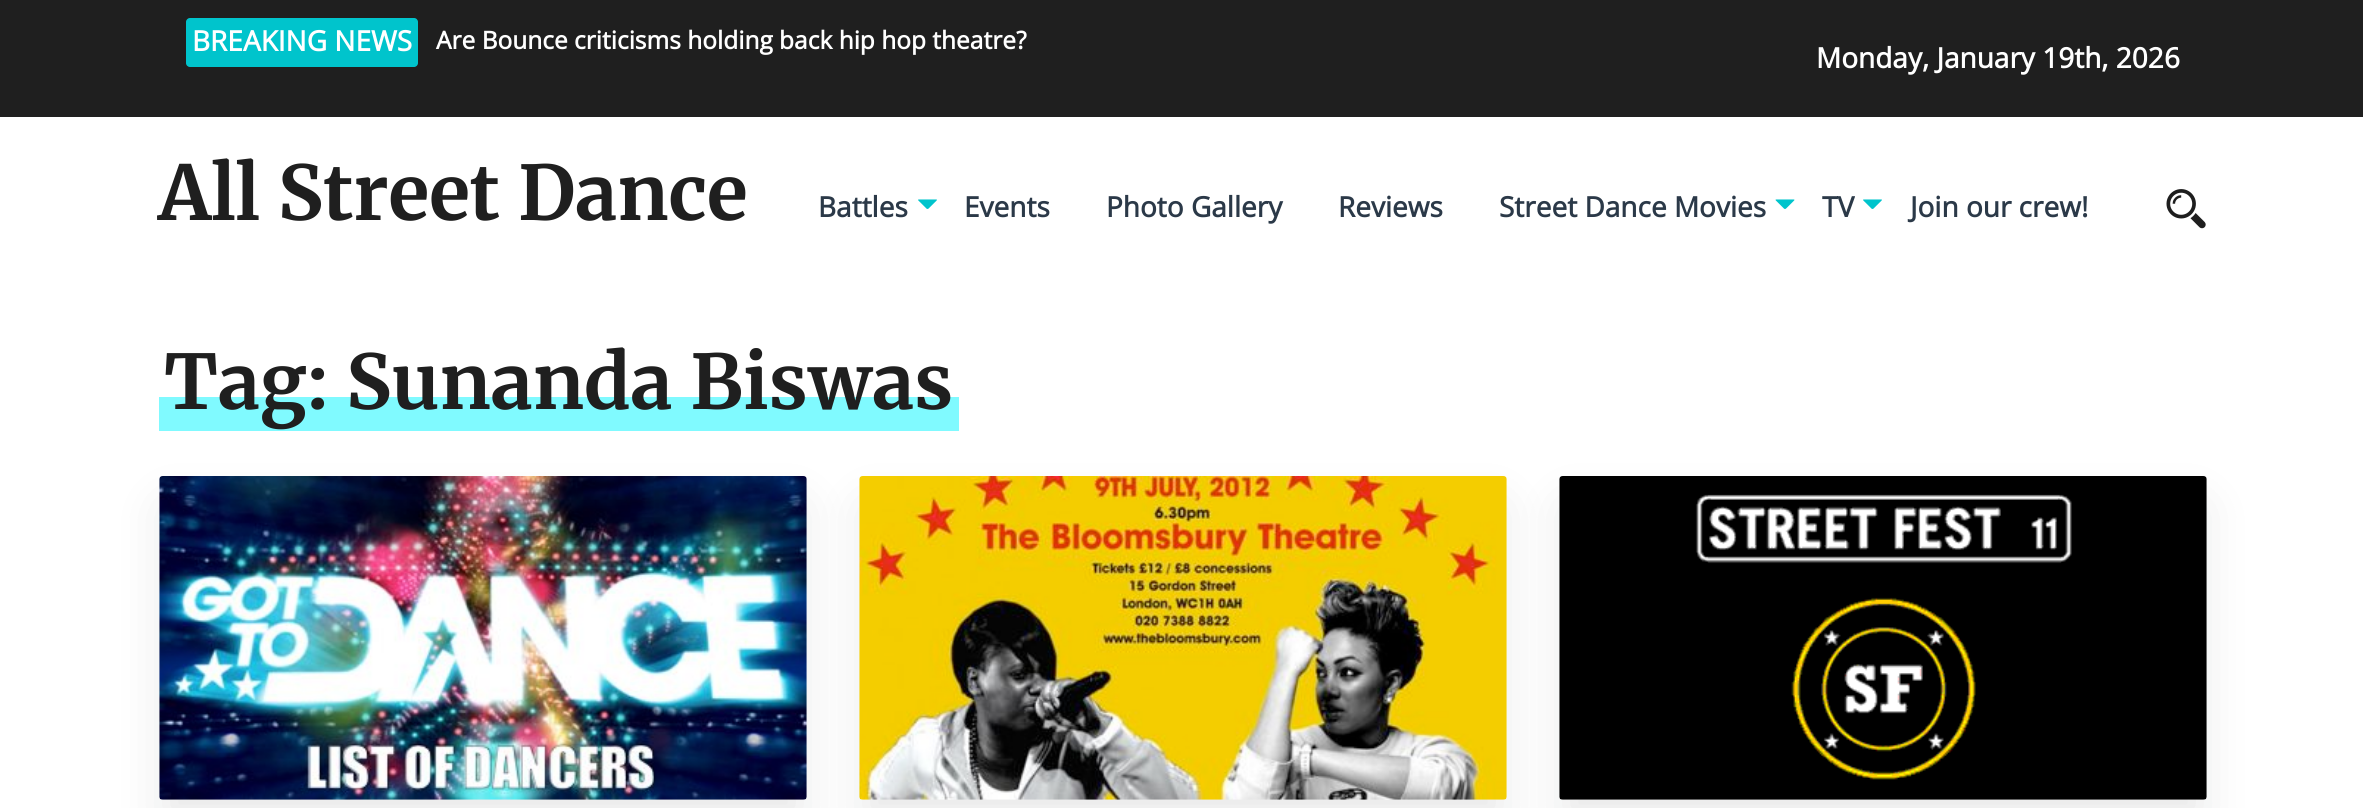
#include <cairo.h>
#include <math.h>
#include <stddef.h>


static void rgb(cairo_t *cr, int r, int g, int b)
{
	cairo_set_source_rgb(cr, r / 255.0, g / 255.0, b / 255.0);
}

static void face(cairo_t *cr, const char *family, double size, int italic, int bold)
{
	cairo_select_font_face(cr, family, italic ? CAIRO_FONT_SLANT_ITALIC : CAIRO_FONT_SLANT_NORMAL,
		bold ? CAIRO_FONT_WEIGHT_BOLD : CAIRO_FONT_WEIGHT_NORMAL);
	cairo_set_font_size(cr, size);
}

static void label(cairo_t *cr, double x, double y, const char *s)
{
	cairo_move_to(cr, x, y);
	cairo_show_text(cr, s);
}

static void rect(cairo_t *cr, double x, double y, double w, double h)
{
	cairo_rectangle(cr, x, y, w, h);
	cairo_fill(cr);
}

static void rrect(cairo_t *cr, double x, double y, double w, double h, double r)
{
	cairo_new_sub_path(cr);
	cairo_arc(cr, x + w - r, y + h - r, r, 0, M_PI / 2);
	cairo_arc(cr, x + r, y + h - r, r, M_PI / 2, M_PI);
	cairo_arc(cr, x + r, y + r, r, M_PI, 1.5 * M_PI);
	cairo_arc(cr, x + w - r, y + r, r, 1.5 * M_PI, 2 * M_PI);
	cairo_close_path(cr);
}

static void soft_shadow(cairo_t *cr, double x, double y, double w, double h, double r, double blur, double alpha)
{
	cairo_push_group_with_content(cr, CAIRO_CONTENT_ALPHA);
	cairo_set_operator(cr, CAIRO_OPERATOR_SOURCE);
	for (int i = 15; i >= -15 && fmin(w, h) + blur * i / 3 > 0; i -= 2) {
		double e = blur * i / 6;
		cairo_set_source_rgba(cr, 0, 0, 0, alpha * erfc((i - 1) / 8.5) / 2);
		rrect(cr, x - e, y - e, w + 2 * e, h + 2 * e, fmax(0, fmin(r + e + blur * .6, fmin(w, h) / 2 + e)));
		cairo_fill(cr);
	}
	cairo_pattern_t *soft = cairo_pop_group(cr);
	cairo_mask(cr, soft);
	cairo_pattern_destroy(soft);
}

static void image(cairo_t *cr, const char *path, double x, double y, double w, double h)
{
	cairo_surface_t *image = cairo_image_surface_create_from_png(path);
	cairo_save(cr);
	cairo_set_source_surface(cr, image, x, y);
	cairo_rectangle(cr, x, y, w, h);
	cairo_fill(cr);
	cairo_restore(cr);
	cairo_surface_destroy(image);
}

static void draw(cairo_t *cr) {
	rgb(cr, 255, 255, 255);
	cairo_paint(cr);
	rgb(cr, 31, 31, 31);
	rect(cr, 0, 0, 2363, 117);
	rgb(cr, 0, 196, 204);
	rrect(cr, 186, 18, 232, 49, 4);
	cairo_fill(cr);
	face(cr, "Open Sans", 28, 0, 1);
	rgb(cr, 255, 255, 255);
	label(cr, 192, 51, "BREAKING NEWS");
	face(cr, "Open Sans", 24.5, 0, 1);
	label(cr, 436, 49, "Are Bounce criticisms holding back hip hop theatre?");
	face(cr, "Open Sans", 28, 0, 1);
	label(cr, 1816, 68, "Monday, January 19th, 2026");
	face(cr, "Merriweather", 75.25, 0, 1);
	rgb(cr, 31, 31, 31);
	label(cr, 158, 220, "All Street Dance");
	face(cr, "Open Sans", 28, 0, 1);
	rgb(cr, 43, 57, 72);
	label(cr, 818, 217, "Battles");
	image(cr, "image0.png", 918, 199, 19, 10);
	label(cr, 964, 217, "Events");
	label(cr, 1106, 217, "Photo Gallery");
	label(cr, 1338, 217, "Reviews");
	label(cr, 1499, 217, "Street Dance Movies");
	image(cr, "image1.png", 1775, 199, 20, 10);
	label(cr, 1822, 217, "TV");
	image(cr, "image0.png", 1863, 199, 19, 10);
	label(cr, 1910, 217, "Join our crew!");
	image(cr, "image2.png", 2166, 189, 40, 40);
	rgb(cr, 128, 250, 255);
	rect(cr, 159, 397, 800, 34);
	face(cr, "Merriweather", 75.25, 0, 1);
	rgb(cr, 31, 31, 31);
	label(cr, 164, 409, "Tag: Sunanda Biswas");
	rgb(cr, 14, 17, 20);
	soft_shadow(cr, 166, 508, 634, 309, 0, 24.5, 0.1);
	image(cr, "image3.png", 159, 476, 648, 324);
	soft_shadow(cr, 866, 508, 634, 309, 0, 24.5, 0.1);
	image(cr, "image4.png", 859, 476, 648, 324);
	soft_shadow(cr, 1566, 508, 634, 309, 0, 24.5, 0.1);
	image(cr, "image5.png", 1559, 476, 648, 324);
}

int main(void) {
	cairo_surface_t *surface = cairo_image_surface_create(CAIRO_FORMAT_RGB24, 2363, 808);
	cairo_t *cr = cairo_create(surface);
	cairo_font_options_t *options = cairo_font_options_create();
	cairo_font_options_set_hint_metrics(options, CAIRO_HINT_METRICS_OFF);
	cairo_font_options_set_hint_style(options, CAIRO_HINT_STYLE_NONE);
	cairo_set_font_options(cr, options);
	cairo_set_miter_limit(cr, 4);
	draw(cr);
	cairo_surface_write_to_png(surface, "render.png");
	cairo_font_options_destroy(options);
	cairo_destroy(cr);
	cairo_surface_destroy(surface);
	return 0;
}
